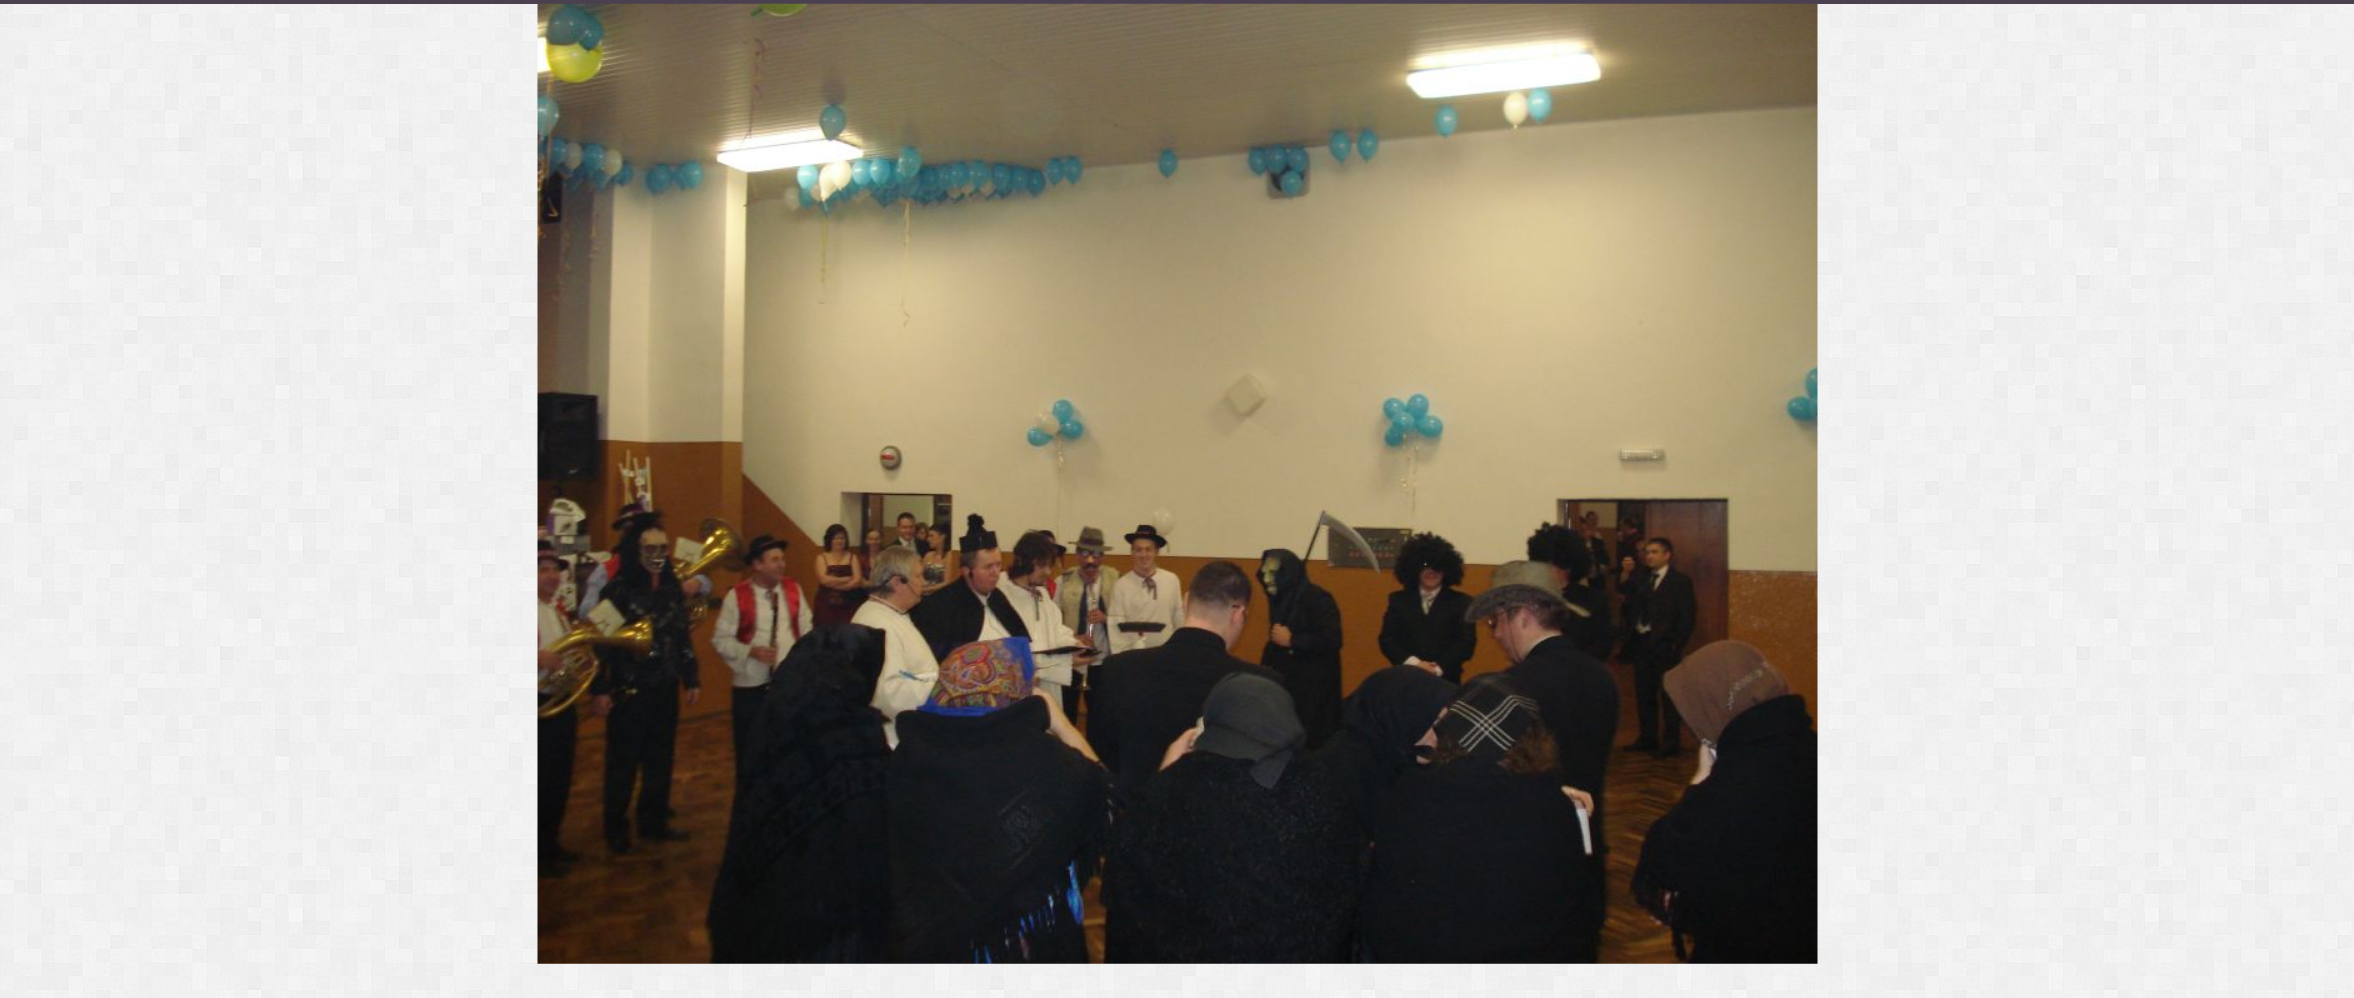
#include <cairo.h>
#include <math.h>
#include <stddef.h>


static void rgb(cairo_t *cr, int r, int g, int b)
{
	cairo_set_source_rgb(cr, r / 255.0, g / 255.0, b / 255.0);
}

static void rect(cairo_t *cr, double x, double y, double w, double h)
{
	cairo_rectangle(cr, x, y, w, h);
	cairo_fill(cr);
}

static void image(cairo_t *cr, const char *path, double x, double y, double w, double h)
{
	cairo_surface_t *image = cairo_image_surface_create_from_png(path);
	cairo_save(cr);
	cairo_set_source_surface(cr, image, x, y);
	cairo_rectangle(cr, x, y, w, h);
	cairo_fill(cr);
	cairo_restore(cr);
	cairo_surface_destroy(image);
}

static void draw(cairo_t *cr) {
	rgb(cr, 255, 255, 255);
	cairo_paint(cr);
	image(cr, "image0.png", 0, 4, 2354, 994);
	rgb(cr, 74, 64, 79);
	rect(cr, 0, 0, 2354, 4);
	image(cr, "image1.png", 537, 3, 1281, 961);
}

int main(void) {
	cairo_surface_t *surface = cairo_image_surface_create(CAIRO_FORMAT_RGB24, 2354, 998);
	cairo_t *cr = cairo_create(surface);
	cairo_font_options_t *options = cairo_font_options_create();
	cairo_font_options_set_hint_metrics(options, CAIRO_HINT_METRICS_OFF);
	cairo_font_options_set_hint_style(options, CAIRO_HINT_STYLE_NONE);
	cairo_set_font_options(cr, options);
	cairo_set_miter_limit(cr, 4);
	draw(cr);
	cairo_surface_write_to_png(surface, "render.png");
	cairo_font_options_destroy(options);
	cairo_destroy(cr);
	cairo_surface_destroy(surface);
	return 0;
}
